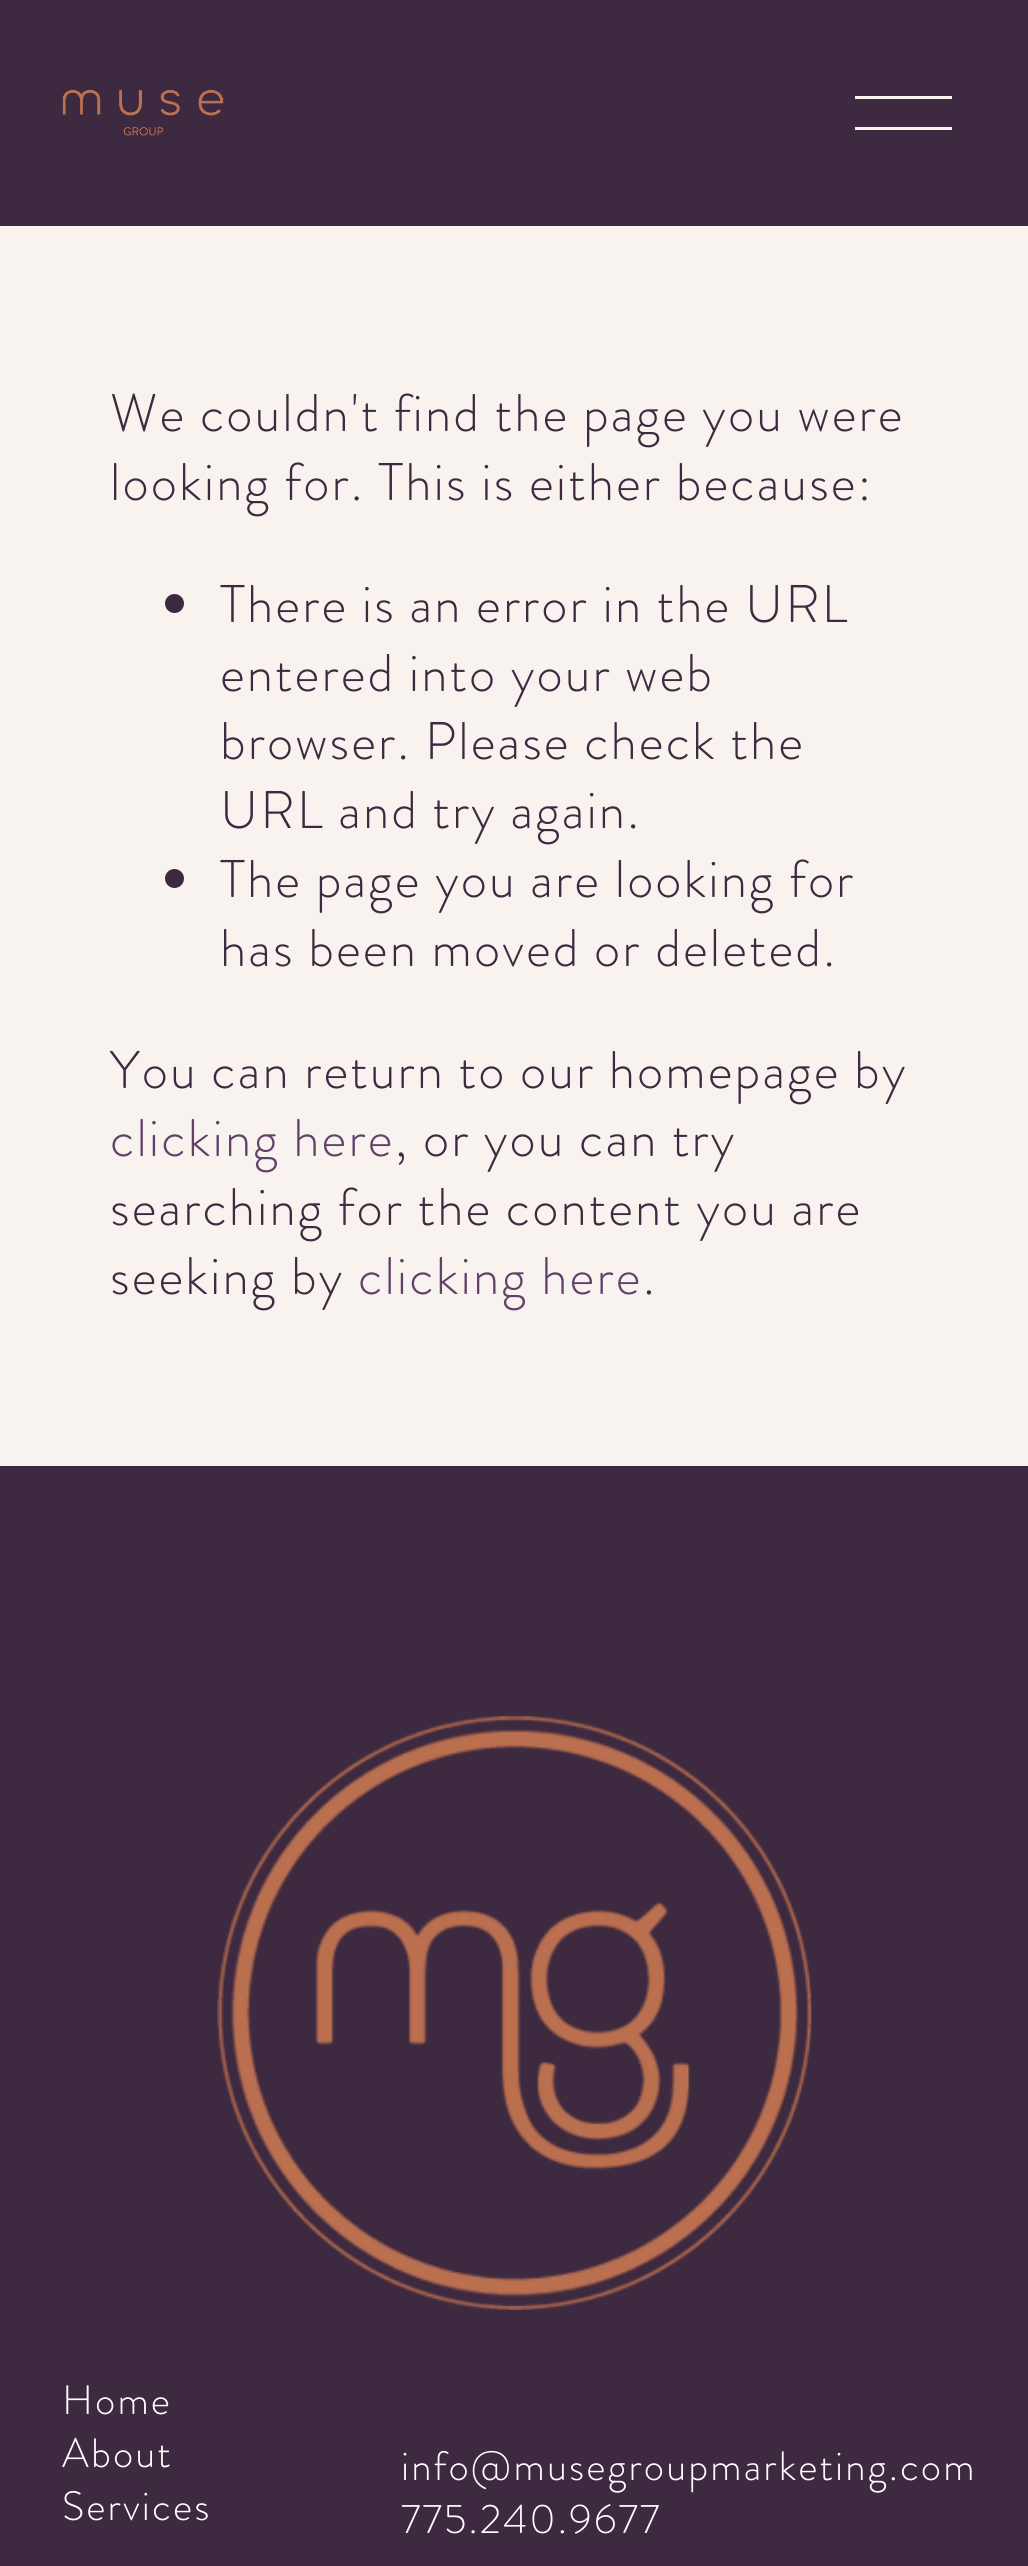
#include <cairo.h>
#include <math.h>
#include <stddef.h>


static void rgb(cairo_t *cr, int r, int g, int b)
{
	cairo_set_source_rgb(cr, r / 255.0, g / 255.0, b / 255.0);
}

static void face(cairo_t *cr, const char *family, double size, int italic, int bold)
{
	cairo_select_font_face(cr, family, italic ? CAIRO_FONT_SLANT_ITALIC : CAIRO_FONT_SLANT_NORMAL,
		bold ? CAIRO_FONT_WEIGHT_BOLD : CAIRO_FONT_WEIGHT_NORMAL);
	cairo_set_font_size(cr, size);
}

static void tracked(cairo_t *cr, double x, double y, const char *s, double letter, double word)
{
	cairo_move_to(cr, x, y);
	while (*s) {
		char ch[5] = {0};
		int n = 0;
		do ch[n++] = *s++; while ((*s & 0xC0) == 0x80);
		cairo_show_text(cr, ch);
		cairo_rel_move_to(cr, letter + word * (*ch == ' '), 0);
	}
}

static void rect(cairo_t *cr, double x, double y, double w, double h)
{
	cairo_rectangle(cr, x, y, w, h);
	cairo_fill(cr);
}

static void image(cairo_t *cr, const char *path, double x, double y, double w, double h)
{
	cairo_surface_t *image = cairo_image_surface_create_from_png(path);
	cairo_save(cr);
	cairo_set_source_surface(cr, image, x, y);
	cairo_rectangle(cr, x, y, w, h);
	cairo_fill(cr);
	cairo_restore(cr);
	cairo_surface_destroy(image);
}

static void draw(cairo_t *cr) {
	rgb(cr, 248, 243, 239);
	cairo_paint(cr);
	rgb(cr, 61, 41, 64);
	rect(cr, 0, 0, 1028, 226);
	image(cr, "image0.png", 62, 89, 162, 47);
	rgb(cr, 248, 243, 239);
	rect(cr, 855, 96, 97, 3);
	rect(cr, 855, 127, 97, 3);
	face(cr, "Brandon Grotesque Light", 52.9, 0, 0);
	rgb(cr, 61, 41, 64);
	tracked(cr, 110, 431, "We couldn't find the page you were", 2.1, 0);
	tracked(cr, 110, 500, "looking for. This is either because:", 2.1, 0);
	cairo_new_path(cr);
	cairo_arc(cr, 174.5, 603.5, 9.5, 0, 2 * M_PI);
	cairo_fill(cr);
	tracked(cr, 220, 622, "There is an error in the URL", 2.1, 0);
	tracked(cr, 220, 691, "entered into your web", 2.1, 0);
	tracked(cr, 220, 759, "browser. Please check the", 2.1, 0);
	tracked(cr, 220, 828, "URL and try again.", 2.1, 0);
	cairo_new_path(cr);
	cairo_arc(cr, 174.5, 878.5, 9.5, 0, 2 * M_PI);
	cairo_fill(cr);
	tracked(cr, 220, 897, "The page you are looking for", 2.1, 0);
	tracked(cr, 220, 966, "has been moved or deleted.", 2.1, 0);
	tracked(cr, 110, 1088, "You can return to our homepage by", 2.1, 0);
	rgb(cr, 97, 64, 105);
	tracked(cr, 110, 1156, "clicking here", 2.1, 0);
	rgb(cr, 61, 41, 64);
	tracked(cr, 395, 1156, ", or you can try", 2.1, 0);
	tracked(cr, 110, 1225, "searching for the content you are", 2.1, 0);
	tracked(cr, 110, 1294, "seeking by", 2.1, 0);
	rgb(cr, 97, 64, 105);
	tracked(cr, 358, 1294, "clicking here", 2.1, 0);
	rgb(cr, 61, 41, 64);
	tracked(cr, 643, 1294, ".", 2.1, 0);
	rect(cr, 0, 1466, 1028, 1100);
	image(cr, "image1.png", 217, 1716, 595, 594);
	face(cr, "Brandon Grotesque Light", 41, 0, 0);
	rgb(cr, 255, 255, 255);
	tracked(cr, 62, 2414, "Home", 2.1, 0);
	tracked(cr, 62, 2467, "About", 2.1, 0);
	tracked(cr, 62, 2520, "Services", 2.1, 0);
	tracked(cr, 401, 2480, "info@musegroupmarketing.com", 2.1, 0);
	tracked(cr, 401, 2533, "775.240.9677", 2.1, 0);
}

int main(void) {
	cairo_surface_t *surface = cairo_image_surface_create(CAIRO_FORMAT_RGB24, 1028, 2566);
	cairo_t *cr = cairo_create(surface);
	cairo_font_options_t *options = cairo_font_options_create();
	cairo_font_options_set_hint_metrics(options, CAIRO_HINT_METRICS_OFF);
	cairo_font_options_set_hint_style(options, CAIRO_HINT_STYLE_NONE);
	cairo_set_font_options(cr, options);
	cairo_set_miter_limit(cr, 4);
	draw(cr);
	cairo_surface_write_to_png(surface, "render.png");
	cairo_font_options_destroy(options);
	cairo_destroy(cr);
	cairo_surface_destroy(surface);
	return 0;
}
